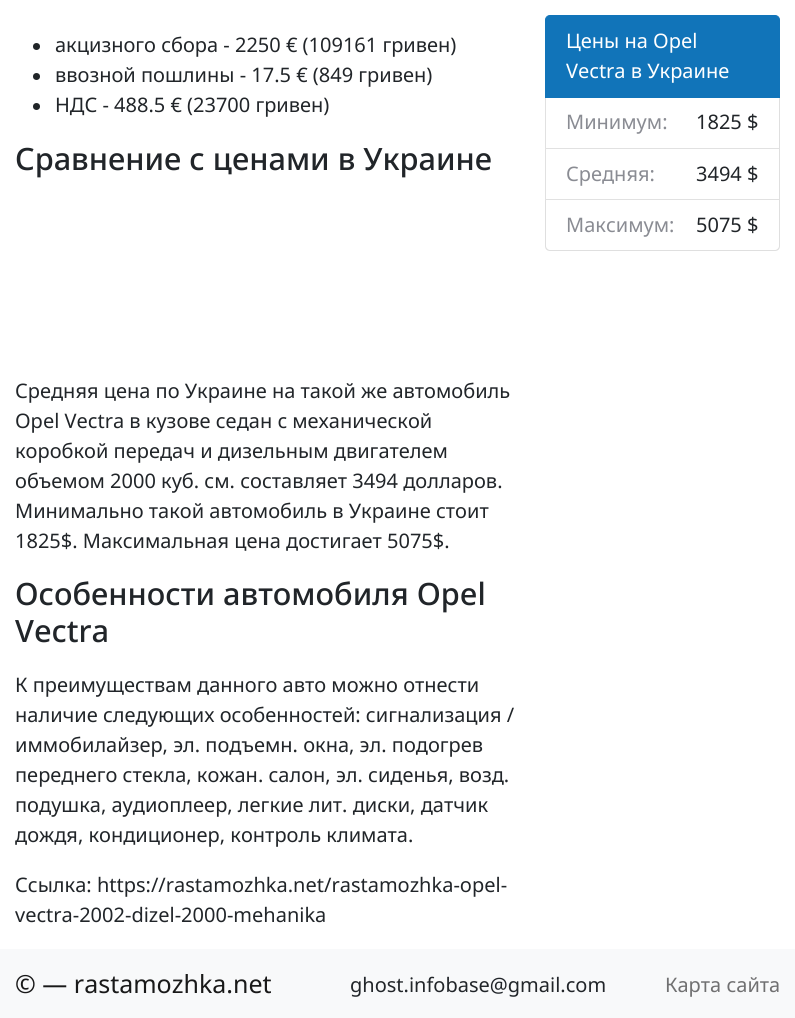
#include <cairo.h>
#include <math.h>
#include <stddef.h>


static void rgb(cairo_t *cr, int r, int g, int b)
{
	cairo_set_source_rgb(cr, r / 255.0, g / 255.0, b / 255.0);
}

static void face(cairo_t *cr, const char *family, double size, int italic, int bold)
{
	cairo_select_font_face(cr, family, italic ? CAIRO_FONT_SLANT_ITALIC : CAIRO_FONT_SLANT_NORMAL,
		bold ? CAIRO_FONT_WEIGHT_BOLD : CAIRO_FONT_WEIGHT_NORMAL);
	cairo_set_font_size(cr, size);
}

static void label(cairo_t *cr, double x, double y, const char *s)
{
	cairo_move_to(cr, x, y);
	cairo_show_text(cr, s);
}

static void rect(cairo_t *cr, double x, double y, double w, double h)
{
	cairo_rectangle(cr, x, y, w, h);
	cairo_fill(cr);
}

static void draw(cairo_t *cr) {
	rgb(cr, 255, 255, 255);
	cairo_paint(cr);
	rgb(cr, 33, 37, 41);
	cairo_arc(cr, 36.5, 46.5, 3.5, 0, 2 * M_PI);
	cairo_fill(cr);
	face(cr, "Noto Sans", 20, 0, 0);
	label(cr, 55, 52, "акцизного сбора - 2250 € (109161 гривен)");
	cairo_new_path(cr);
	cairo_arc(cr, 36.5, 76.5, 3.5, 0, 2 * M_PI);
	cairo_fill(cr);
	label(cr, 55, 82, "ввозной пошлины - 17.5 € (849 гривен)");
	cairo_new_path(cr);
	cairo_arc(cr, 36.5, 106.5, 3.5, 0, 2 * M_PI);
	cairo_fill(cr);
	label(cr, 55, 112, "НДС - 488.5 € (23700 гривен)");
	face(cr, "Noto Sans Medium", 30.75, 0, 0);
	label(cr, 15, 170, "Сравнение с ценами в Украине");
	face(cr, "Noto Sans", 20, 0, 0);
	label(cr, 15, 398, "Средняя цена по Украине на такой же автомобиль");
	label(cr, 15, 428, "Opel Vectra в кузове седан c механической");
	label(cr, 15, 458, "коробкой передач и дизельным двигателем");
	label(cr, 15, 488, "объемом 2000 куб. см. составляет 3494 долларов.");
	label(cr, 15, 518, "Минимально такой автомобиль в Украине стоит");
	label(cr, 15, 548, "1825$. Максимальная цена достигает 5075$.");
	face(cr, "Noto Sans Medium", 30.75, 0, 0);
	label(cr, 15, 605, "Особенности автомобиля Opel");
	label(cr, 15, 642, "Vectra");
	face(cr, "Noto Sans", 20, 0, 0);
	label(cr, 15, 692, "К преимуществам данного авто можно отнести");
	label(cr, 15, 722, "наличие следующих особенностей: сигнализация /");
	label(cr, 15, 752, "иммобилайзер, эл. подъемн. окна, эл. подогрев");
	label(cr, 15, 782, "переднего стекла, кожан. салон, эл. сиденья, возд.");
	label(cr, 15, 812, "подушка, аудиоплеер, легкие лит. диски, датчик");
	label(cr, 15, 842, "дождя, кондиционер, контроль климата.");
	label(cr, 15, 892, "Ссылка: https://rastamozhka.net/rastamozhka-opel-");
	label(cr, 15, 922, "vectra-2002-dizel-2000-mehanika");
	rgb(cr, 17, 116, 185);
	cairo_new_path(cr);
	cairo_move_to(cr, 550, 15.5);
	cairo_line_to(cr, 775, 15.5);
	cairo_curve_to(cr, 777.5, 15.5, 779.5, 17.5, 779.5, 20);
	cairo_line_to(cr, 779.5, 97.5);
	cairo_line_to(cr, 545.5, 97.5);
	cairo_line_to(cr, 545.5, 20);
	cairo_curve_to(cr, 545.5, 17.5, 547.5, 15.5, 550, 15.5);
	cairo_close_path(cr);
	cairo_fill_preserve(cr);
	cairo_set_line_width(cr, 1);
	cairo_stroke(cr);
	rgb(cr, 255, 255, 255);
	label(cr, 566, 48, "Цены на Opel");
	label(cr, 566, 78, "Vectra в Украине");
	rgb(cr, 223, 223, 223);
	cairo_new_path(cr);
	cairo_move_to(cr, 780, 98);
	cairo_line_to(cr, 780, 149);
	cairo_line_to(cr, 779, 148);
	cairo_line_to(cr, 779, 98);
	cairo_close_path(cr);
	cairo_fill(cr);
	cairo_set_source_rgba(cr, 0, 0, 0, 0.12);
	cairo_new_path(cr);
	cairo_move_to(cr, 780, 149);
	cairo_line_to(cr, 545, 149);
	cairo_line_to(cr, 546, 148);
	cairo_line_to(cr, 779, 148);
	cairo_close_path(cr);
	cairo_fill(cr);
	cairo_new_path(cr);
	cairo_move_to(cr, 545, 149);
	cairo_line_to(cr, 545, 98);
	cairo_line_to(cr, 546, 98);
	cairo_line_to(cr, 546, 148);
	cairo_close_path(cr);
	cairo_fill(cr);
	rgb(cr, 138, 140, 147);
	label(cr, 566, 129, "Минимум:");
	rgb(cr, 33, 37, 41);
	label(cr, 696, 129, "1825 $");
	rgb(cr, 223, 223, 223);
	cairo_new_path(cr);
	cairo_move_to(cr, 780, 149);
	cairo_line_to(cr, 780, 200);
	cairo_line_to(cr, 779, 199);
	cairo_line_to(cr, 779, 149);
	cairo_close_path(cr);
	cairo_fill(cr);
	cairo_set_source_rgba(cr, 0, 0, 0, 0.12);
	cairo_new_path(cr);
	cairo_move_to(cr, 780, 200);
	cairo_line_to(cr, 545, 200);
	cairo_line_to(cr, 546, 199);
	cairo_line_to(cr, 779, 199);
	cairo_close_path(cr);
	cairo_fill(cr);
	cairo_new_path(cr);
	cairo_move_to(cr, 545, 200);
	cairo_line_to(cr, 545, 149);
	cairo_line_to(cr, 546, 149);
	cairo_line_to(cr, 546, 199);
	cairo_close_path(cr);
	cairo_fill(cr);
	rgb(cr, 138, 140, 147);
	label(cr, 566, 181, "Средняя:");
	rgb(cr, 33, 37, 41);
	label(cr, 696, 181, "3494 $");
	rgb(cr, 223, 223, 223);
	cairo_set_fill_rule(cr, CAIRO_FILL_RULE_EVEN_ODD);
	cairo_new_path(cr);
	cairo_move_to(cr, 545, 200);
	cairo_line_to(cr, 780, 200);
	cairo_line_to(cr, 780, 246);
	cairo_curve_to(cr, 780, 249, 778, 251, 775, 251);
	cairo_line_to(cr, 550, 251);
	cairo_curve_to(cr, 547, 251, 545, 249, 545, 246);
	cairo_close_path(cr);
	cairo_move_to(cr, 546, 200);
	cairo_line_to(cr, 779, 200);
	cairo_line_to(cr, 779, 246);
	cairo_curve_to(cr, 779, 248, 777, 250, 775, 250);
	cairo_line_to(cr, 550, 250);
	cairo_curve_to(cr, 548, 250, 546, 248, 546, 246);
	cairo_close_path(cr);
	cairo_fill(cr);
	rgb(cr, 138, 140, 147);
	label(cr, 566, 232, "Максимум:");
	rgb(cr, 33, 37, 41);
	label(cr, 696, 232, "5075 $");
	rgb(cr, 248, 249, 250);
	rect(cr, 0, 949, 795, 69);
	face(cr, "Noto Sans", 25, 0, 0);
	rgb(cr, 25, 25, 25);
	label(cr, 15, 993, "© — rastamozhka.net");
	face(cr, "Noto Sans", 20, 0, 0);
	rgb(cr, 33, 37, 41);
	label(cr, 350, 992, "ghost.infobase@gmail.com");
	rgb(cr, 112, 112, 113);
	label(cr, 665, 992, "Карта сайта");
}

int main(void) {
	cairo_surface_t *surface = cairo_image_surface_create(CAIRO_FORMAT_RGB24, 795, 1018);
	cairo_t *cr = cairo_create(surface);
	cairo_font_options_t *options = cairo_font_options_create();
	cairo_font_options_set_hint_metrics(options, CAIRO_HINT_METRICS_OFF);
	cairo_font_options_set_hint_style(options, CAIRO_HINT_STYLE_NONE);
	cairo_set_font_options(cr, options);
	cairo_set_miter_limit(cr, 4);
	draw(cr);
	cairo_surface_write_to_png(surface, "render.png");
	cairo_font_options_destroy(options);
	cairo_destroy(cr);
	cairo_surface_destroy(surface);
	return 0;
}
